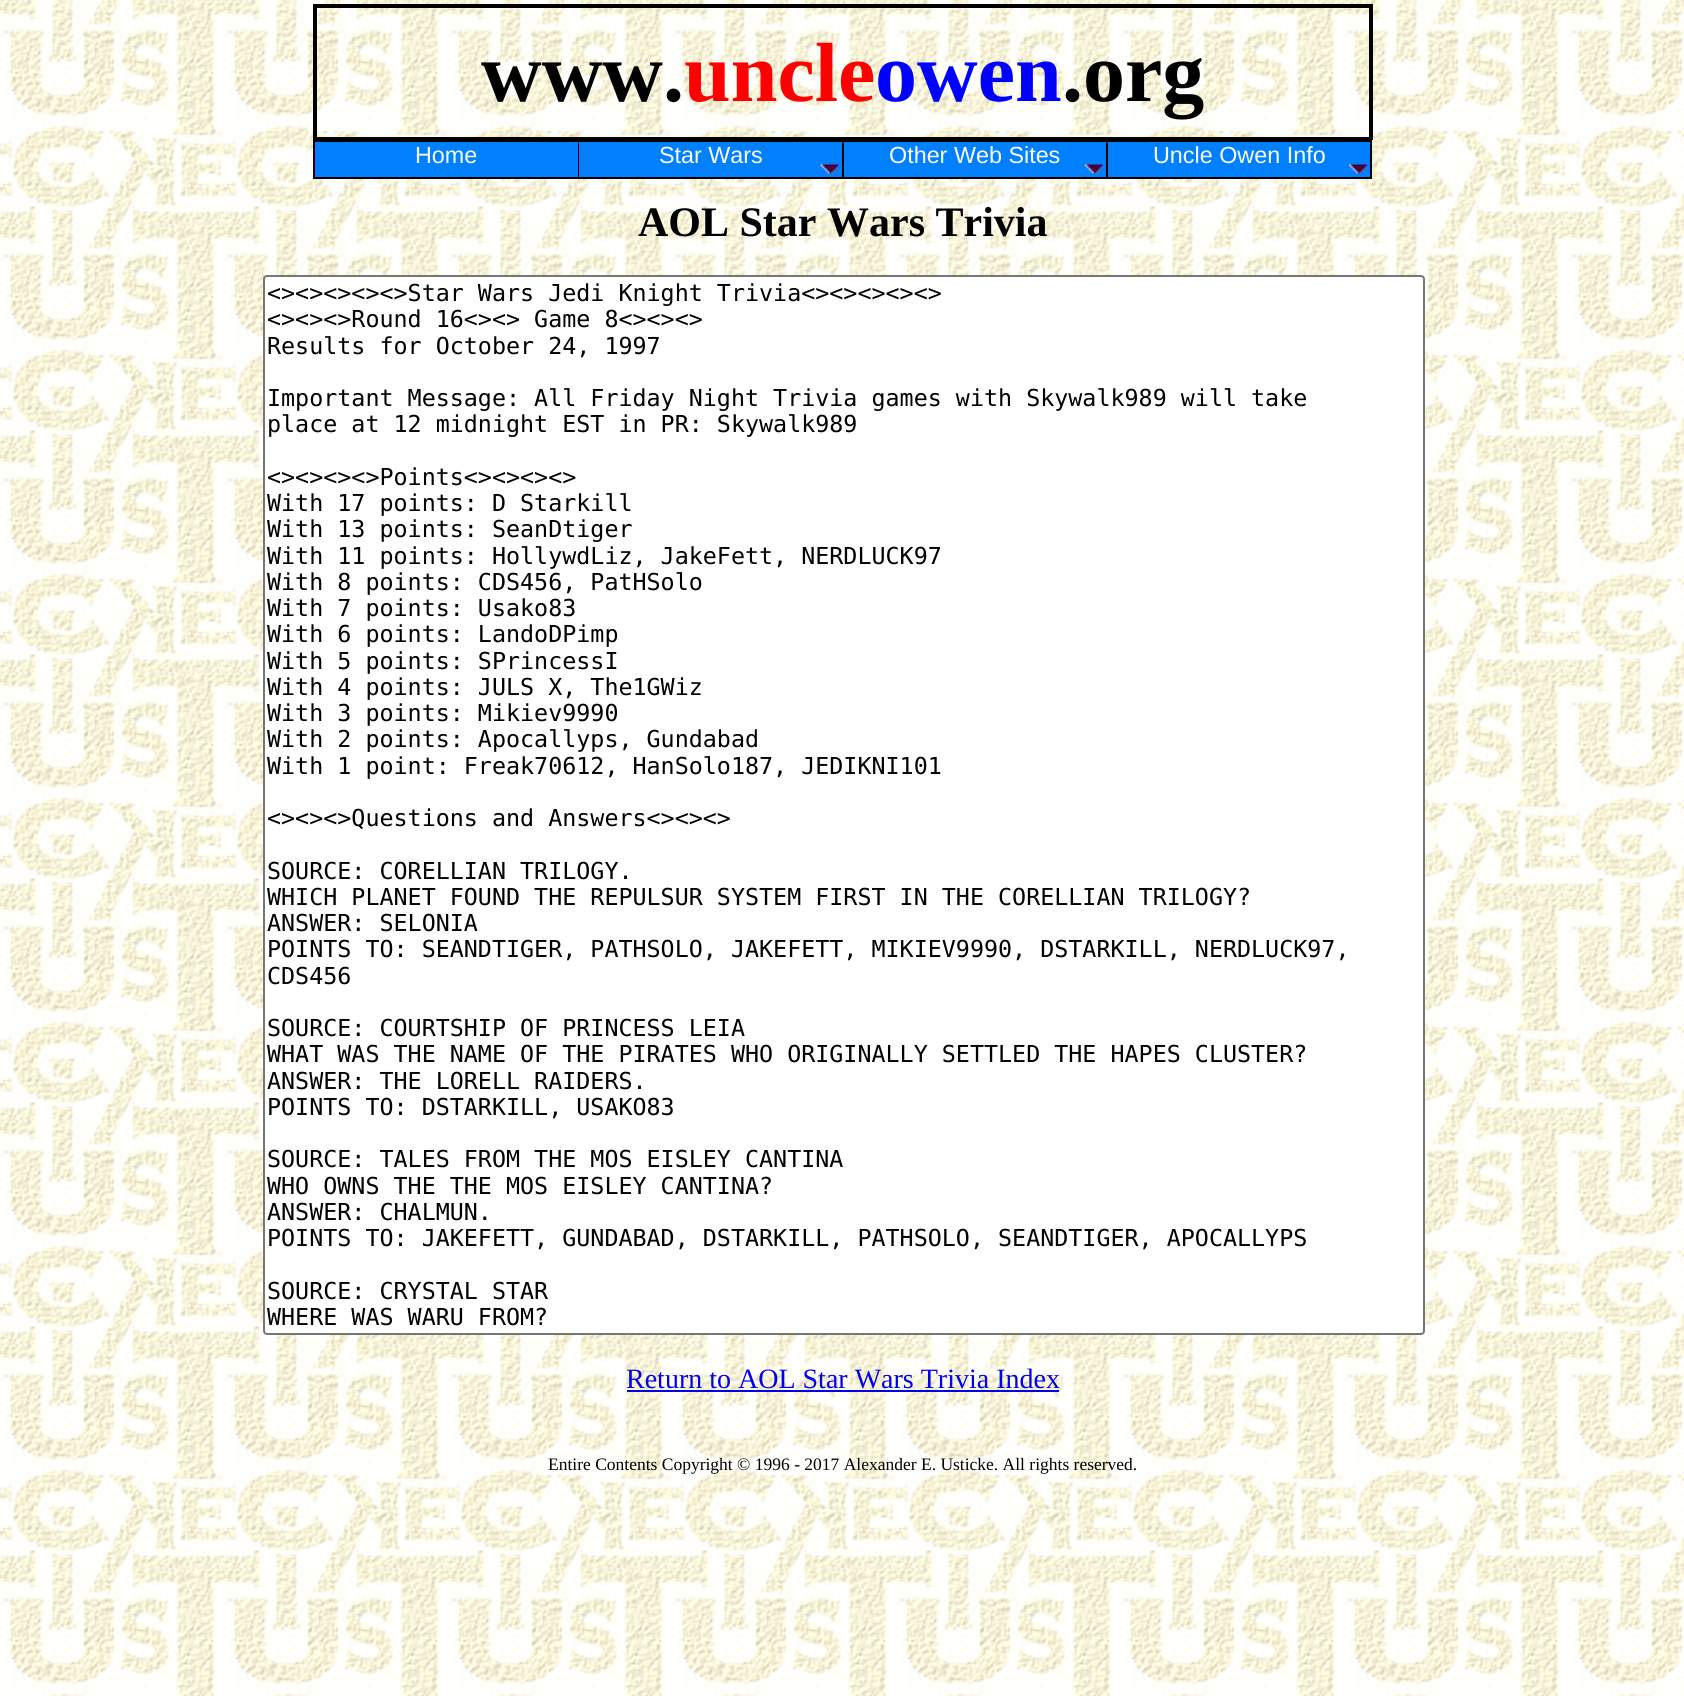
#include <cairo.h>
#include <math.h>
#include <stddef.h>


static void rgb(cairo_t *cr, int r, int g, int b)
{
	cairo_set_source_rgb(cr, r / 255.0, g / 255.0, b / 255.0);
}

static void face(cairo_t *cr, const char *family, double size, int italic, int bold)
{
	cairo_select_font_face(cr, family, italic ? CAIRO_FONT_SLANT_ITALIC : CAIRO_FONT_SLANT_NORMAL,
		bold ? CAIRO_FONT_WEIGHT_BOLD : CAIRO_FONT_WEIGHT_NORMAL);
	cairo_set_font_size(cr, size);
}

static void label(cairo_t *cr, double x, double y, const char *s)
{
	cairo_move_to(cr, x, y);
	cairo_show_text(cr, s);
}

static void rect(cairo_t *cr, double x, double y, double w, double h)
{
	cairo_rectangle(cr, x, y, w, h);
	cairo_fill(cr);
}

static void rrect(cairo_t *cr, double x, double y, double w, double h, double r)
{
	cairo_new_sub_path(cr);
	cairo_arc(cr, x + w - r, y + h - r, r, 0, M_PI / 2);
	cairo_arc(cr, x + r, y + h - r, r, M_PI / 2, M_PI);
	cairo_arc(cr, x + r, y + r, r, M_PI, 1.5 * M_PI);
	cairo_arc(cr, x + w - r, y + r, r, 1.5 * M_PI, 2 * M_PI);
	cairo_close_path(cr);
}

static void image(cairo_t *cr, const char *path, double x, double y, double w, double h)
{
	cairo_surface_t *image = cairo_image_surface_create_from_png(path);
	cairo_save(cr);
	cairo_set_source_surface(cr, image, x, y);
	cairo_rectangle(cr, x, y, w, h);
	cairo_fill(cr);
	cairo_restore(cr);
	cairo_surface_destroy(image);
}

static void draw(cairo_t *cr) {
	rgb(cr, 255, 255, 255);
	cairo_paint(cr);
	image(cr, "image0.png", 0, 0, 1684, 1696);
	rgb(cr, 0, 0, 0);
	rect(cr, 313, 4, 1059, 4);
	rect(cr, 1369, 4, 4, 136);
	rect(cr, 313, 137, 1059, 42);
	rect(cr, 313, 4, 4, 136);
	face(cr, "Liberation Serif", 84, 0, 1);
	label(cr, 481, 101, "www.");
	rgb(cr, 255, 0, 0);
	label(cr, 684, 101, "uncle");
	rgb(cr, 0, 0, 255);
	label(cr, 875, 101, "owen");
	rgb(cr, 0, 0, 0);
	label(cr, 1062, 101, ".org");
	rgb(cr, 0, 128, 255);
	rect(cr, 315, 142, 263, 35);
	face(cr, "Liberation Sans", 23.35, 0, 0);
	rgb(cr, 255, 255, 255);
	label(cr, 415, 163, "Home");
	rgb(cr, 0, 128, 255);
	rect(cr, 579, 142, 263, 35);
	rgb(cr, 255, 255, 255);
	label(cr, 659, 163, "Star Wars");
	image(cr, "image1.png", 820, 164, 19, 10);
	rgb(cr, 0, 128, 255);
	rect(cr, 844, 142, 262, 35);
	rgb(cr, 255, 255, 255);
	label(cr, 889, 163, "Other Web Sites");
	image(cr, "image2.png", 1085, 164, 18, 10);
	rgb(cr, 0, 128, 255);
	rect(cr, 1108, 142, 262, 35);
	rgb(cr, 255, 255, 255);
	label(cr, 1153, 163, "Uncle Owen Info");
	image(cr, "image3.png", 1349, 164, 18, 10);
	face(cr, "Liberation Serif", 42, 0, 1);
	rgb(cr, 0, 0, 0);
	label(cr, 638, 236, "AOL Star Wars Trivia");
	rgb(cr, 255, 255, 255);
	rrect(cr, 264, 276, 1160, 1058, 3);
	cairo_fill_preserve(cr);
	rgb(cr, 118, 118, 118);
	cairo_stroke(cr);
	face(cr, "DejaVu Sans Mono", 23.35, 0, 0);
	rgb(cr, 0, 0, 0);
	label(cr, 267, 301, "<><><><><>Star Wars Jedi Knight Trivia<><><><><>");
	label(cr, 267, 327, "<><><>Round 16<><> Game 8<><><>");
	label(cr, 267, 354, "Results for October 24, 1997");
	label(cr, 267, 406, "Important Message: All Friday Night Trivia games with Skywalk989 will take");
	label(cr, 267, 432, "place at 12 midnight EST in PR: Skywalk989");
	label(cr, 267, 485, "<><><><>Points<><><><>");
	label(cr, 267, 511, "With 17 points: D Starkill");
	label(cr, 267, 537, "With 13 points: SeanDtiger");
	label(cr, 267, 564, "With 11 points: HollywdLiz, JakeFett, NERDLUCK97");
	label(cr, 267, 590, "With 8 points: CDS456, PatHSolo");
	label(cr, 267, 616, "With 7 points: Usako83");
	label(cr, 267, 642, "With 6 points: LandoDPimp");
	label(cr, 267, 669, "With 5 points: SPrincessI");
	label(cr, 267, 695, "With 4 points: JULS X, The1GWiz");
	label(cr, 267, 721, "With 3 points: Mikiev9990");
	label(cr, 267, 747, "With 2 points: Apocallyps, Gundabad");
	label(cr, 267, 774, "With 1 point: Freak70612, HanSolo187, JEDIKNI101");
	label(cr, 267, 826, "<><><>Questions and Answers<><><>");
	label(cr, 267, 879, "SOURCE: CORELLIAN TRILOGY.");
	label(cr, 267, 905, "WHICH PLANET FOUND THE REPULSUR SYSTEM FIRST IN THE CORELLIAN TRILOGY?");
	label(cr, 267, 931, "ANSWER: SELONIA");
	label(cr, 267, 957, "POINTS TO: SEANDTIGER, PATHSOLO, JAKEFETT, MIKIEV9990, DSTARKILL, NERDLUCK97,");
	label(cr, 267, 984, "CDS456");
	label(cr, 267, 1036, "SOURCE: COURTSHIP OF PRINCESS LEIA");
	label(cr, 267, 1062, "WHAT WAS THE NAME OF THE PIRATES WHO ORIGINALLY SETTLED THE HAPES CLUSTER?");
	label(cr, 267, 1089, "ANSWER: THE LORELL RAIDERS.");
	label(cr, 267, 1115, "POINTS TO: DSTARKILL, USAKO83");
	label(cr, 267, 1167, "SOURCE: TALES FROM THE MOS EISLEY CANTINA");
	label(cr, 267, 1194, "WHO OWNS THE THE MOS EISLEY CANTINA?");
	label(cr, 267, 1220, "ANSWER: CHALMUN.");
	label(cr, 267, 1246, "POINTS TO: JAKEFETT, GUNDABAD, DSTARKILL, PATHSOLO, SEANDTIGER, APOCALLYPS");
	label(cr, 267, 1299, "SOURCE: CRYSTAL STAR");
	label(cr, 267, 1325, "WHERE WAS WARU FROM?");
	face(cr, "Liberation Serif", 28, 0, 0);
	rgb(cr, 0, 0, 238);
	label(cr, 626, 1388, "Return to AOL Star Wars Trivia Index");
	rect(cr, 627, 1390, 432, 2);
	face(cr, "Liberation Serif", 17.5, 0, 0);
	rgb(cr, 0, 0, 0);
	label(cr, 548, 1470, "Entire Contents Copyright © 1996 - 2017 Alexander E. Usticke. All rights reserved.");
}

int main(void) {
	cairo_surface_t *surface = cairo_image_surface_create(CAIRO_FORMAT_RGB24, 1684, 1696);
	cairo_t *cr = cairo_create(surface);
	cairo_font_options_t *options = cairo_font_options_create();
	cairo_font_options_set_hint_metrics(options, CAIRO_HINT_METRICS_OFF);
	cairo_font_options_set_hint_style(options, CAIRO_HINT_STYLE_NONE);
	cairo_set_font_options(cr, options);
	cairo_set_miter_limit(cr, 4);
	draw(cr);
	cairo_surface_write_to_png(surface, "render.png");
	cairo_font_options_destroy(options);
	cairo_destroy(cr);
	cairo_surface_destroy(surface);
	return 0;
}
